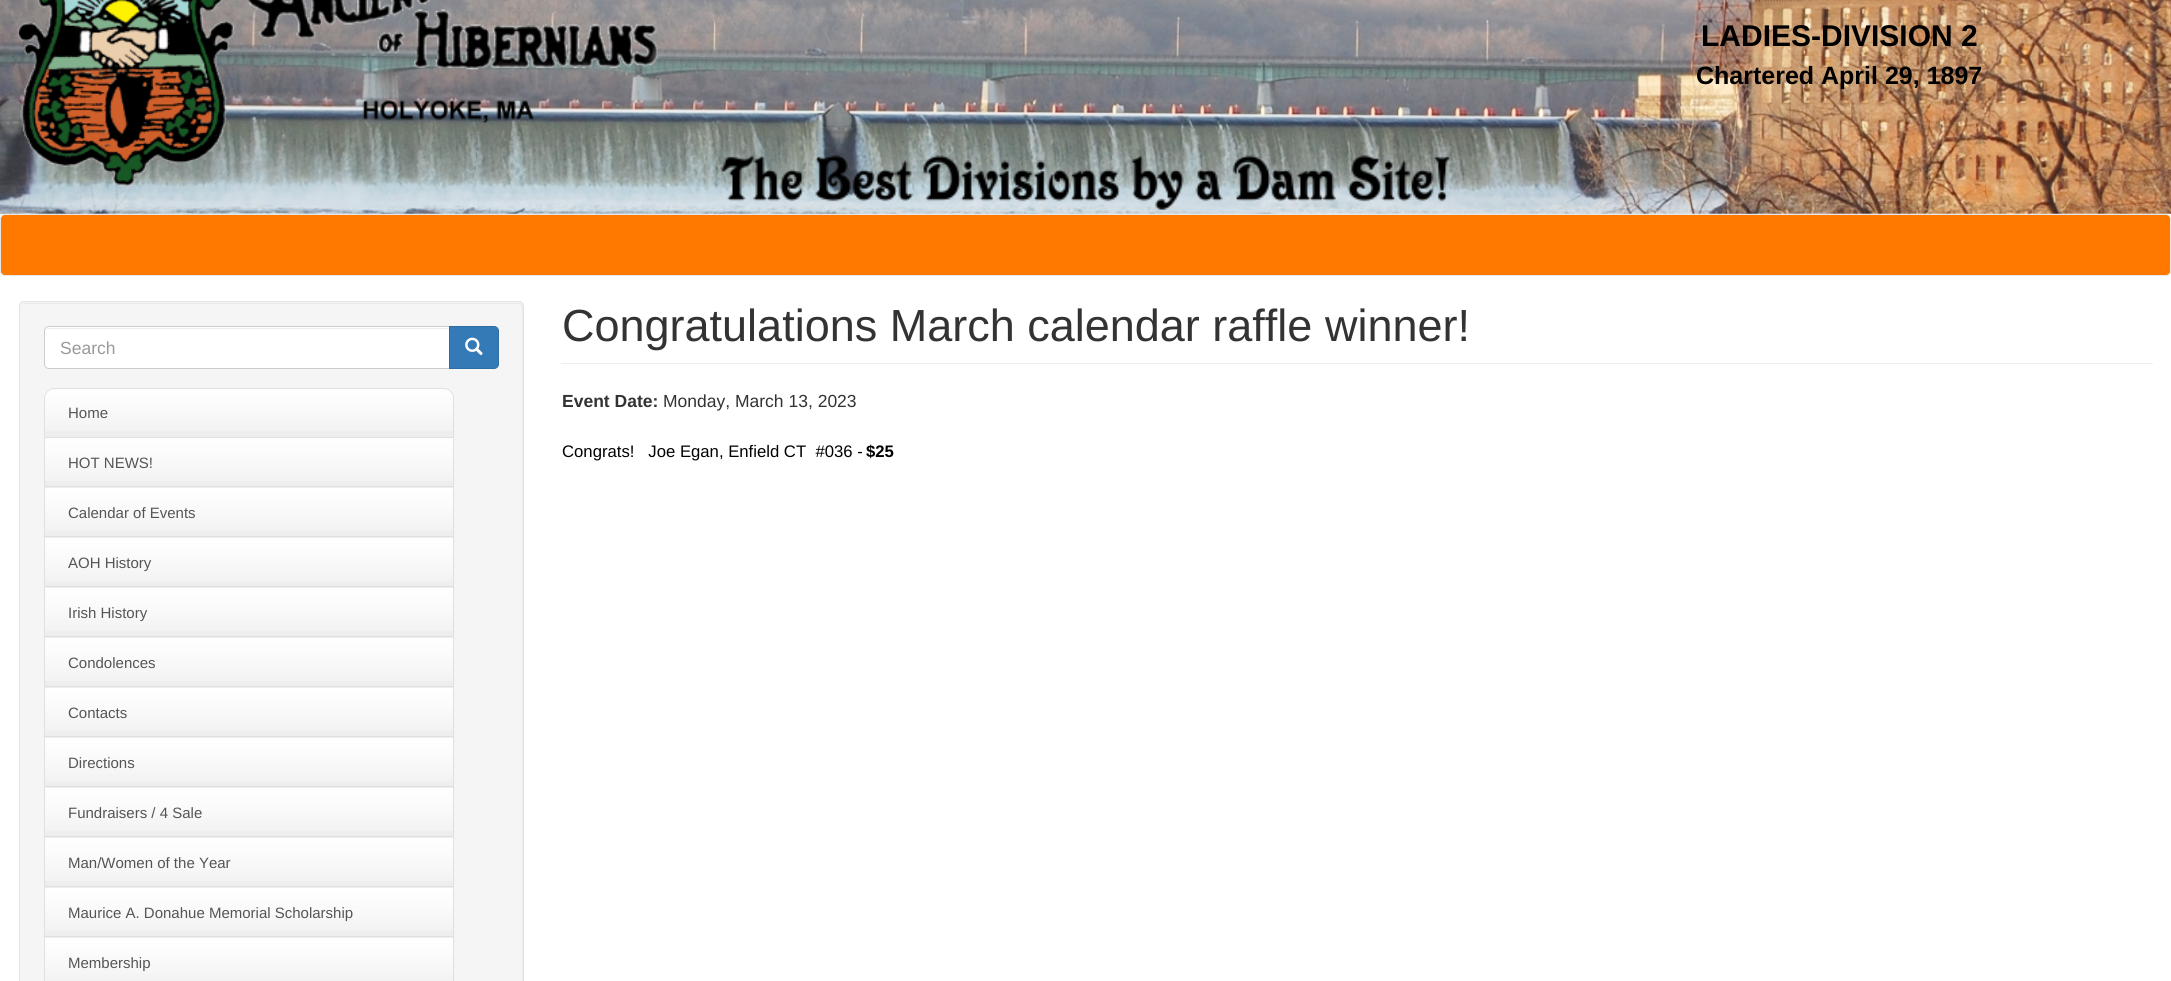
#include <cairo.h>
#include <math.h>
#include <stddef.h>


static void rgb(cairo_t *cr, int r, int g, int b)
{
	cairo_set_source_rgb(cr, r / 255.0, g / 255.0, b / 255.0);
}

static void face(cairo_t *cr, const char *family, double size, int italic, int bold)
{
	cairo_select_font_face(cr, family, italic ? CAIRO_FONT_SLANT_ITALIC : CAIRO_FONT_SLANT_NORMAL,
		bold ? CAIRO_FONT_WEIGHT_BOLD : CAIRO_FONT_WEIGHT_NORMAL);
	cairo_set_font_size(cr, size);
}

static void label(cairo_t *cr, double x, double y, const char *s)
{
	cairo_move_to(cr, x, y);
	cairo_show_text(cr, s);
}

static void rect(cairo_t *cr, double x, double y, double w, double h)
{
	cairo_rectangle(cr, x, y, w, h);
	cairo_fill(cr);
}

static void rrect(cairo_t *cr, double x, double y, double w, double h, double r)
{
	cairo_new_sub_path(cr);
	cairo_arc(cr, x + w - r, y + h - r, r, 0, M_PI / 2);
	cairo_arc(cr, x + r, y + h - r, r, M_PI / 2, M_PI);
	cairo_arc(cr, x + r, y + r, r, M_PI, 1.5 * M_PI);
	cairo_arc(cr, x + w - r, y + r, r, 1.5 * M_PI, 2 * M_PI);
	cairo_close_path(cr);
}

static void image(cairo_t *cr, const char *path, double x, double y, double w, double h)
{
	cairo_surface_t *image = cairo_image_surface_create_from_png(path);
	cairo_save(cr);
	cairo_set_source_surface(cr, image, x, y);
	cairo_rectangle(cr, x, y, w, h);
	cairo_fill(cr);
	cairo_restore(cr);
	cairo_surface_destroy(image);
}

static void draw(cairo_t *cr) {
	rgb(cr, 255, 255, 255);
	cairo_paint(cr);
	image(cr, "image0.png", 0, 0, 2171, 214);
	image(cr, "image1.png", 17, 0, 641, 186);
	face(cr, "Liberation Sans", 30, 0, 1);
	rgb(cr, 0, 0, 0);
	label(cr, 1701, 46, "LADIES-DIVISION 2");
	face(cr, "Liberation Sans", 25, 0, 1);
	label(cr, 1696, 84, "Chartered April 29, 1897");
	image(cr, "image2.png", 721, 155, 729, 55);
	rgb(cr, 255, 121, 0);
	rrect(cr, 0.5, 214.5, 2170, 61, 4.5);
	cairo_fill_preserve(cr);
	rgb(cr, 231, 231, 231);
	cairo_set_line_width(cr, 1);
	cairo_stroke(cr);
	rgb(cr, 245, 245, 245);
	rrect(cr, 19, 301, 505, 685, 5);
	cairo_fill(cr);
	rgb(cr, 233, 233, 233);
	cairo_new_path(cr);
	cairo_move_to(cr, 24, 304);
	cairo_line_to(cr, 519, 304);
	cairo_curve_to(cr, 521, 304, 522, 306, 522, 308);
	cairo_line_to(cr, 522, 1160);
	cairo_curve_to(cr, 523, 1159, 523, 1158, 523, 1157);
	cairo_line_to(cr, 523, 307);
	cairo_curve_to(cr, 523, 305, 521, 303, 519, 303);
	cairo_line_to(cr, 24, 303);
	cairo_curve_to(cr, 22, 303, 20, 305, 20, 307);
	cairo_line_to(cr, 20, 308);
	cairo_curve_to(cr, 20, 305, 22, 304, 24, 304);
	cairo_close_path(cr);
	cairo_fill(cr);
	rrect(cr, 19.5, 301.5, 504, 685, 4.5);
	rgb(cr, 227, 227, 227);
	cairo_stroke(cr);
	rgb(cr, 255, 255, 255);
	cairo_new_path(cr);
	cairo_move_to(cr, 49, 326);
	cairo_line_to(cr, 450, 326);
	cairo_line_to(cr, 450, 369);
	cairo_line_to(cr, 49, 369);
	cairo_curve_to(cr, 46, 369, 44, 367, 44, 364);
	cairo_line_to(cr, 44, 331);
	cairo_curve_to(cr, 44, 328, 46, 326, 49, 326);
	cairo_close_path(cr);
	cairo_fill(cr);
	rgb(cr, 236, 236, 236);
	cairo_new_path(cr);
	cairo_move_to(cr, 49, 329);
	cairo_line_to(cr, 449, 329);
	cairo_line_to(cr, 449, 328);
	cairo_line_to(cr, 49, 328);
	cairo_curve_to(cr, 47, 328, 45, 330, 45, 332);
	cairo_curve_to(cr, 45, 330, 47, 329, 49, 329);
	cairo_close_path(cr);
	cairo_fill(cr);
	cairo_new_path(cr);
	cairo_move_to(cr, 49, 326.5);
	cairo_line_to(cr, 449.5, 326.5);
	cairo_line_to(cr, 449.5, 368.5);
	cairo_line_to(cr, 49, 368.5);
	cairo_curve_to(cr, 46.5, 368.5, 44.5, 366.5, 44.5, 364);
	cairo_line_to(cr, 44.5, 331);
	cairo_curve_to(cr, 44.5, 328.5, 46.5, 326.5, 49, 326.5);
	cairo_close_path(cr);
	rgb(cr, 204, 204, 204);
	cairo_stroke(cr);
	face(cr, "Liberation Sans", 17.5, 0, 0);
	rgb(cr, 153, 153, 153);
	label(cr, 60, 354, "Search");
	rgb(cr, 51, 122, 183);
	cairo_new_path(cr);
	cairo_move_to(cr, 449.5, 326.5);
	cairo_line_to(cr, 494, 326.5);
	cairo_curve_to(cr, 496.5, 326.5, 498.5, 328.5, 498.5, 331);
	cairo_line_to(cr, 498.5, 364);
	cairo_curve_to(cr, 498.5, 366.5, 496.5, 368.5, 494, 368.5);
	cairo_line_to(cr, 449.5, 368.5);
	cairo_close_path(cr);
	cairo_fill_preserve(cr);
	rgb(cr, 46, 109, 164);
	cairo_stroke(cr);
	image(cr, "image3.png", 465, 337, 18, 19);
	rgb(cr, 238, 238, 238);
	cairo_new_path(cr);
	cairo_move_to(cr, 54, 388);
	cairo_line_to(cr, 444, 388);
	cairo_curve_to(cr, 449.5, 388, 454, 392.5, 454, 398);
	cairo_line_to(cr, 454, 438);
	cairo_line_to(cr, 44, 438);
	cairo_line_to(cr, 44, 398);
	cairo_curve_to(cr, 44, 392.5, 48.5, 388, 54, 388);
	cairo_close_path(cr);
	cairo_fill(cr);
	image(cr, "image4.png", 44, 388, 410, 43);
	cairo_new_path(cr);
	cairo_move_to(cr, 54, 388.5);
	cairo_line_to(cr, 444, 388.5);
	cairo_curve_to(cr, 449, 388.5, 453.5, 393, 453.5, 398);
	cairo_line_to(cr, 453.5, 437.5);
	cairo_line_to(cr, 44.5, 437.5);
	cairo_line_to(cr, 44.5, 398);
	cairo_curve_to(cr, 44.5, 393, 49, 388.5, 54, 388.5);
	cairo_close_path(cr);
	rgb(cr, 224, 224, 224);
	cairo_stroke(cr);
	face(cr, "Liberation Sans", 15, 0, 0);
	rgb(cr, 85, 85, 85);
	label(cr, 68, 418, "Home");
	rgb(cr, 238, 238, 238);
	rect(cr, 45, 481, 408, 7);
	image(cr, "image5.png", 45, 439, 408, 42);
	rgb(cr, 255, 255, 255);
	rect(cr, 44, 438, 410, 1);
	rgb(cr, 224, 224, 224);
	rect(cr, 453, 438, 1, 50);
	rect(cr, 44, 486, 410, 1);
	rect(cr, 44, 438, 1, 50);
	rgb(cr, 85, 85, 85);
	label(cr, 68, 468, "HOT NEWS!");
	rgb(cr, 238, 238, 238);
	rect(cr, 45, 531, 408, 7);
	image(cr, "image5.png", 45, 489, 408, 42);
	rgb(cr, 255, 255, 255);
	rect(cr, 44, 488, 410, 1);
	rgb(cr, 224, 224, 224);
	rect(cr, 453, 488, 1, 50);
	rect(cr, 44, 536, 410, 1);
	rect(cr, 44, 488, 1, 50);
	rgb(cr, 85, 85, 85);
	label(cr, 68, 518, "Calendar of Events");
	rgb(cr, 238, 238, 238);
	rect(cr, 45, 581, 408, 7);
	image(cr, "image5.png", 45, 539, 408, 42);
	rgb(cr, 255, 255, 255);
	rect(cr, 44, 538, 410, 1);
	rgb(cr, 224, 224, 224);
	rect(cr, 453, 538, 1, 50);
	rect(cr, 44, 586, 410, 1);
	rect(cr, 44, 538, 1, 50);
	rgb(cr, 85, 85, 85);
	label(cr, 68, 568, "AOH History");
	rgb(cr, 238, 238, 238);
	rect(cr, 45, 631, 408, 7);
	image(cr, "image5.png", 45, 589, 408, 42);
	rgb(cr, 255, 255, 255);
	rect(cr, 44, 588, 410, 1);
	rgb(cr, 224, 224, 224);
	rect(cr, 453, 588, 1, 50);
	rect(cr, 44, 636, 410, 1);
	rect(cr, 44, 588, 1, 50);
	rgb(cr, 85, 85, 85);
	label(cr, 68, 618, "Irish History");
	rgb(cr, 238, 238, 238);
	rect(cr, 45, 681, 408, 7);
	image(cr, "image5.png", 45, 639, 408, 42);
	rgb(cr, 255, 255, 255);
	rect(cr, 44, 638, 410, 1);
	rgb(cr, 224, 224, 224);
	rect(cr, 453, 638, 1, 50);
	rect(cr, 44, 686, 410, 1);
	rect(cr, 44, 638, 1, 50);
	rgb(cr, 85, 85, 85);
	label(cr, 68, 668, "Condolences");
	rgb(cr, 238, 238, 238);
	rect(cr, 45, 731, 408, 7);
	image(cr, "image5.png", 45, 689, 408, 42);
	rgb(cr, 255, 255, 255);
	rect(cr, 44, 688, 410, 1);
	rgb(cr, 224, 224, 224);
	rect(cr, 453, 688, 1, 50);
	rect(cr, 44, 736, 410, 1);
	rect(cr, 44, 688, 1, 50);
	rgb(cr, 85, 85, 85);
	label(cr, 68, 718, "Contacts");
	rgb(cr, 238, 238, 238);
	rect(cr, 45, 781, 408, 7);
	image(cr, "image5.png", 45, 739, 408, 42);
	rgb(cr, 255, 255, 255);
	rect(cr, 44, 738, 410, 1);
	rgb(cr, 224, 224, 224);
	rect(cr, 453, 738, 1, 50);
	rect(cr, 44, 786, 410, 1);
	rect(cr, 44, 738, 1, 50);
	rgb(cr, 85, 85, 85);
	label(cr, 68, 768, "Directions");
	rgb(cr, 238, 238, 238);
	rect(cr, 45, 831, 408, 7);
	image(cr, "image5.png", 45, 789, 408, 42);
	rgb(cr, 255, 255, 255);
	rect(cr, 44, 788, 410, 1);
	rgb(cr, 224, 224, 224);
	rect(cr, 453, 788, 1, 50);
	rect(cr, 44, 836, 410, 1);
	rect(cr, 44, 788, 1, 50);
	rgb(cr, 85, 85, 85);
	label(cr, 68, 818, "Fundraisers / 4 Sale");
	rgb(cr, 238, 238, 238);
	rect(cr, 45, 881, 408, 7);
	image(cr, "image5.png", 45, 839, 408, 42);
	rgb(cr, 255, 255, 255);
	rect(cr, 44, 838, 410, 1);
	rgb(cr, 224, 224, 224);
	rect(cr, 453, 838, 1, 50);
	rect(cr, 44, 886, 410, 1);
	rect(cr, 44, 838, 1, 50);
	rgb(cr, 85, 85, 85);
	label(cr, 68, 868, "Man/Women of the Year");
	rgb(cr, 238, 238, 238);
	rect(cr, 45, 931, 408, 7);
	image(cr, "image5.png", 45, 889, 408, 42);
	rgb(cr, 255, 255, 255);
	rect(cr, 44, 888, 410, 1);
	rgb(cr, 224, 224, 224);
	rect(cr, 453, 888, 1, 50);
	rect(cr, 44, 936, 410, 1);
	rect(cr, 44, 888, 1, 50);
	rgb(cr, 85, 85, 85);
	label(cr, 68, 918, "Maurice A. Donahue Memorial Scholarship");
	image(cr, "image5.png", 45, 939, 408, 42);
	rgb(cr, 255, 255, 255);
	rect(cr, 44, 938, 410, 1);
	rgb(cr, 224, 224, 224);
	rect(cr, 453, 938, 1, 43);
	rect(cr, 44, 938, 1, 43);
	rgb(cr, 85, 85, 85);
	label(cr, 68, 968, "Membership");
	rgb(cr, 238, 238, 238);
	rect(cr, 561, 363, 1592, 1);
	face(cr, "Liberation Sans", 45, 0, 0);
	rgb(cr, 51, 51, 51);
	label(cr, 562, 341, "Congratulations March calendar raffle winner!");
	face(cr, "Liberation Sans", 17.5, 0, 1);
	label(cr, 562, 407, "Event Date:");
	face(cr, "Liberation Sans", 17.5, 0, 0);
	label(cr, 663, 407, "Monday, March 13, 2023");
	face(cr, "Liberation Sans", 16.7, 0, 0);
	rgb(cr, 0, 0, 0);
	label(cr, 562, 457, "Congrats!   Joe Egan, Enfield CT  #036 -");
	face(cr, "Liberation Sans", 16.7, 0, 1);
	label(cr, 866, 457, "$25");
}

int main(void) {
	cairo_surface_t *surface = cairo_image_surface_create(CAIRO_FORMAT_RGB24, 2171, 981);
	cairo_t *cr = cairo_create(surface);
	cairo_font_options_t *options = cairo_font_options_create();
	cairo_font_options_set_hint_metrics(options, CAIRO_HINT_METRICS_OFF);
	cairo_font_options_set_hint_style(options, CAIRO_HINT_STYLE_NONE);
	cairo_set_font_options(cr, options);
	cairo_set_miter_limit(cr, 4);
	draw(cr);
	cairo_surface_write_to_png(surface, "render.png");
	cairo_font_options_destroy(options);
	cairo_destroy(cr);
	cairo_surface_destroy(surface);
	return 0;
}
